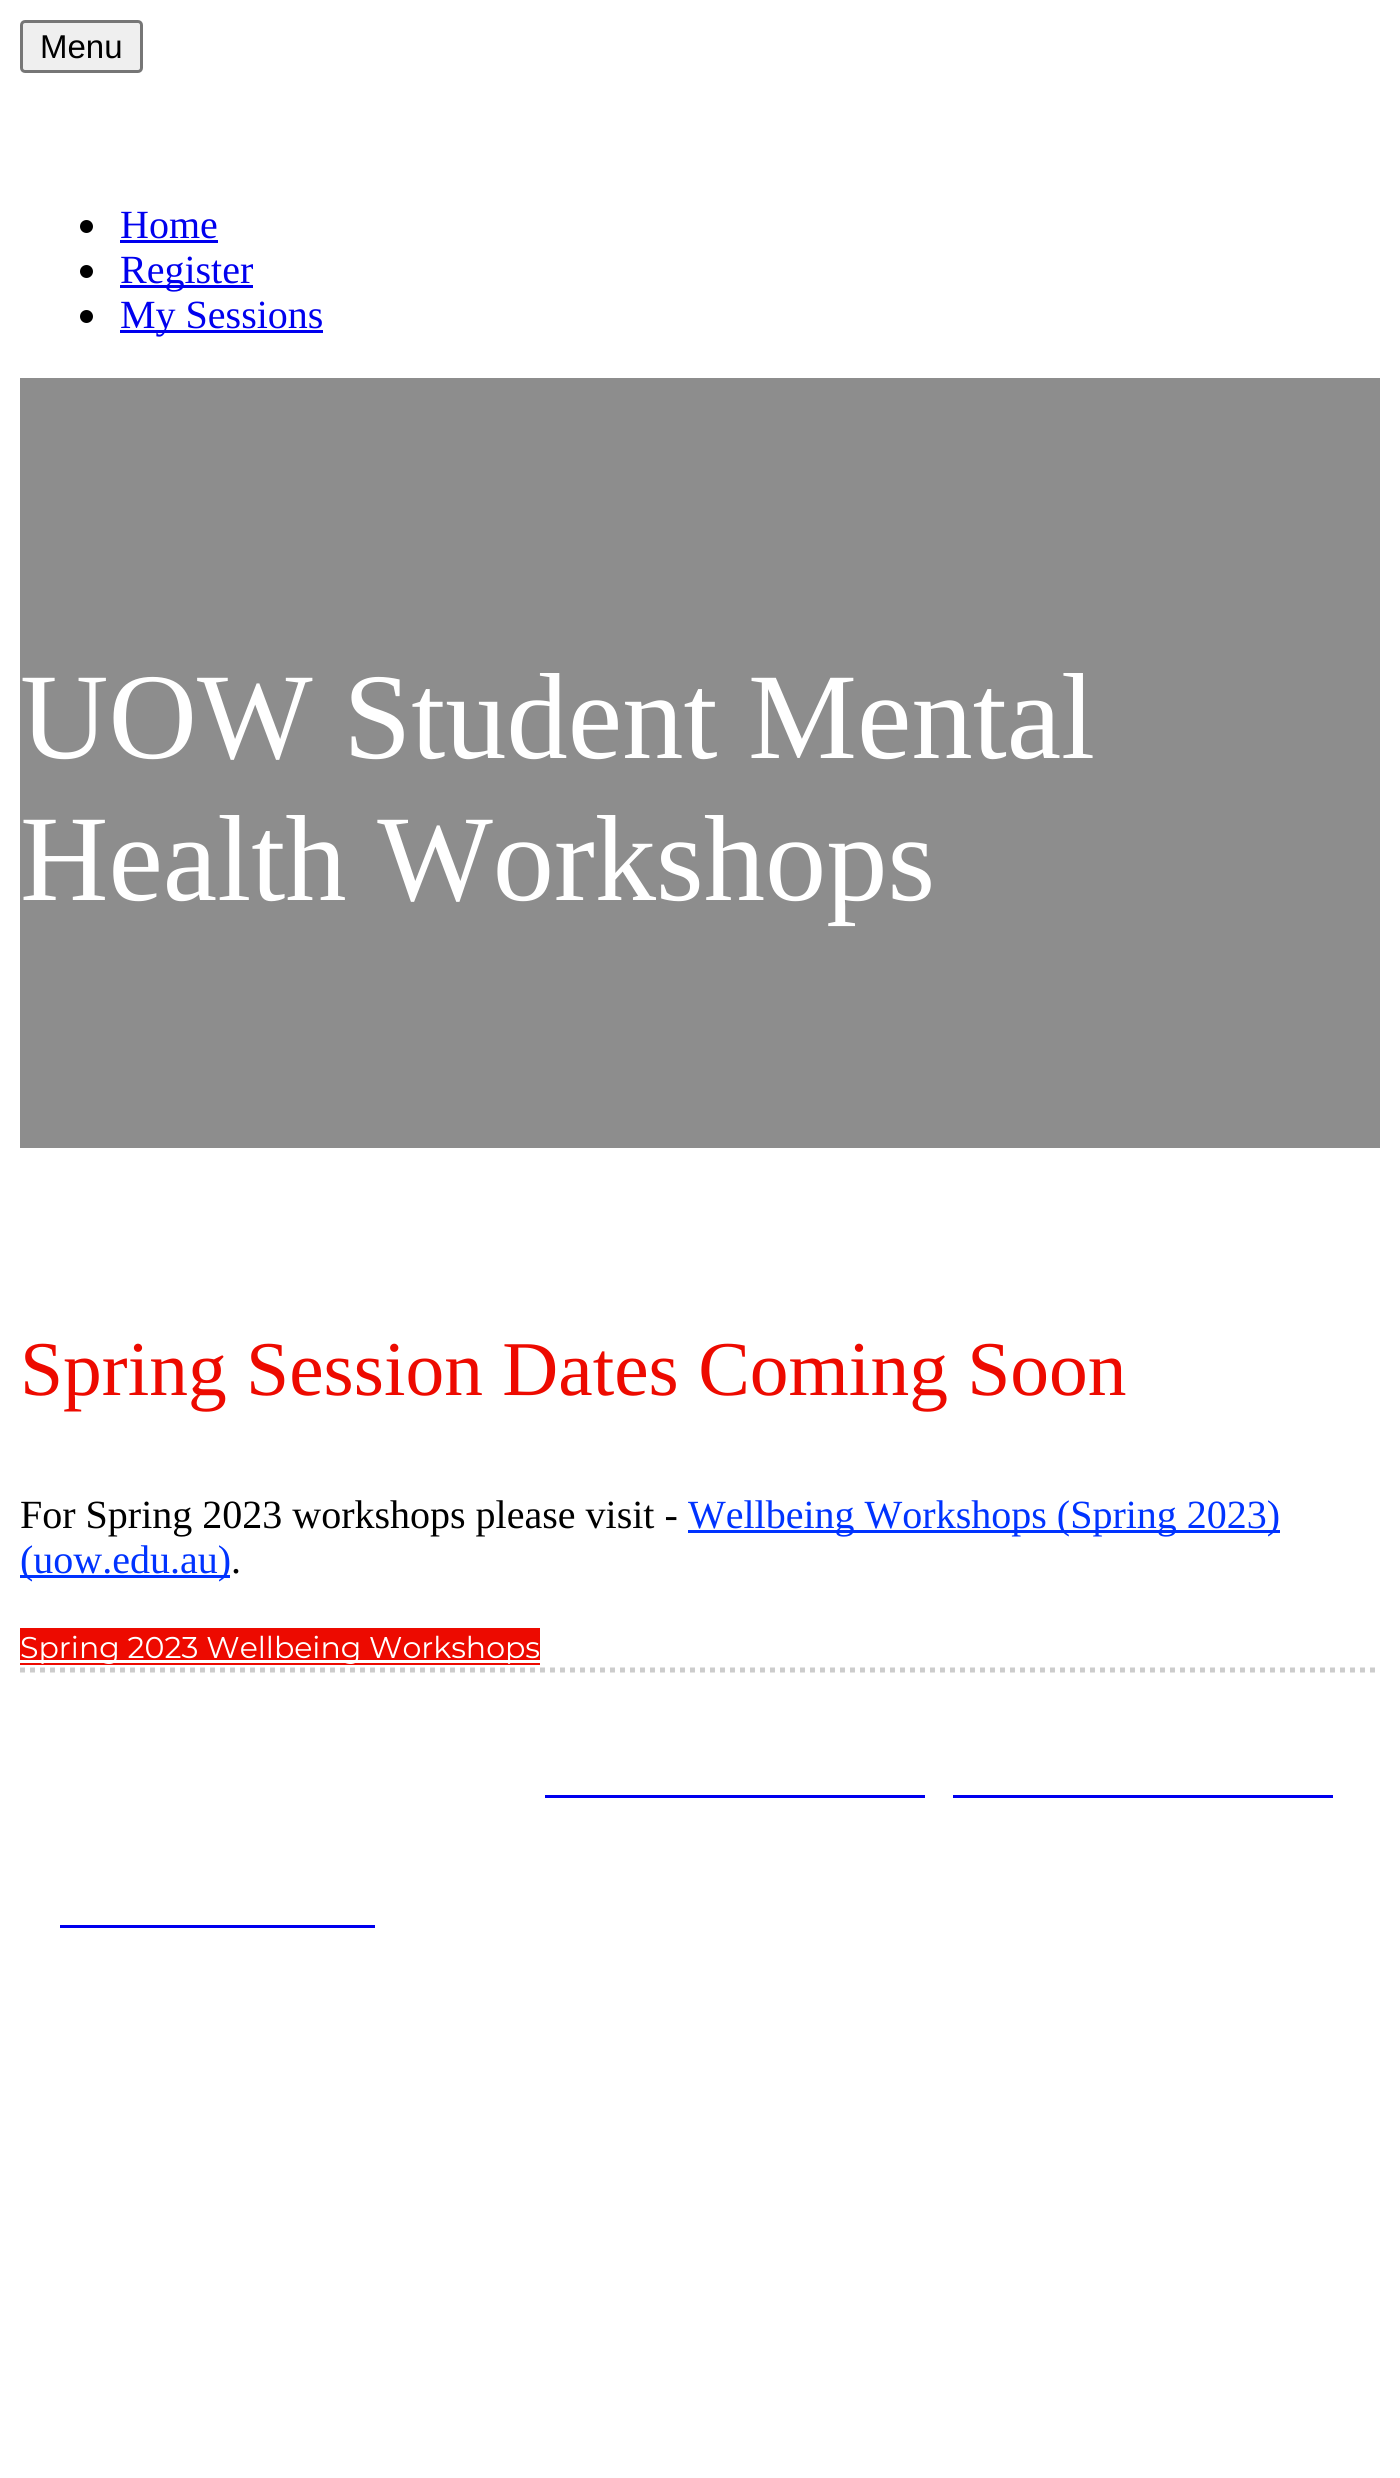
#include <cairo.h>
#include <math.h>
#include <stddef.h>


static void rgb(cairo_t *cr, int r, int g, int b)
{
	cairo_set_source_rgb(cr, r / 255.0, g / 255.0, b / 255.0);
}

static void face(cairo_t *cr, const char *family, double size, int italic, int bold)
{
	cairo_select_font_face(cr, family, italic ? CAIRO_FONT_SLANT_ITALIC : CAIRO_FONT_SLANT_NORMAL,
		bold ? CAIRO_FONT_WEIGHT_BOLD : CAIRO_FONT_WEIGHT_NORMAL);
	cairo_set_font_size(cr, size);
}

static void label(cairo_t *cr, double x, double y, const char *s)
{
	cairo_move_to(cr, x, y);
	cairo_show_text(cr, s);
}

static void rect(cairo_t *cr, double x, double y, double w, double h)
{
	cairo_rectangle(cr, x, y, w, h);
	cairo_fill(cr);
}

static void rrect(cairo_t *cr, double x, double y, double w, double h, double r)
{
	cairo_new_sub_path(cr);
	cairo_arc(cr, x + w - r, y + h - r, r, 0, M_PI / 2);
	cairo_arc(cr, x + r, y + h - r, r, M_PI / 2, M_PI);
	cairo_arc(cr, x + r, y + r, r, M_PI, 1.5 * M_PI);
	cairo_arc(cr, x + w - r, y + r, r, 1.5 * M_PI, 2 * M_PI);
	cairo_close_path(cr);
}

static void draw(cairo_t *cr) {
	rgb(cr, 255, 255, 255);
	cairo_paint(cr);
	rgb(cr, 239, 239, 239);
	rrect(cr, 21.5, 21.5, 120, 50, 3.5);
	cairo_fill_preserve(cr);
	rgb(cr, 118, 118, 118);
	cairo_set_line_width(cr, 3);
	cairo_stroke(cr);
	face(cr, "Liberation Sans", 33, 0, 0);
	rgb(cr, 0, 0, 0);
	label(cr, 40, 58, "Menu");
	cairo_new_path(cr);
	cairo_arc(cr, 86.5, 226.5, 6.5, 0, 2 * M_PI);
	cairo_fill(cr);
	face(cr, "Liberation Serif", 40, 0, 0);
	rgb(cr, 0, 0, 238);
	label(cr, 120, 238, "Home");
	rect(cr, 120, 240, 98, 3);
	rgb(cr, 0, 0, 0);
	cairo_new_path(cr);
	cairo_arc(cr, 86.5, 271.5, 6.5, 0, 2 * M_PI);
	cairo_fill(cr);
	rgb(cr, 0, 0, 238);
	rect(cr, 120, 285, 133, 3);
	label(cr, 120, 283, "Register");
	rgb(cr, 0, 0, 0);
	cairo_new_path(cr);
	cairo_arc(cr, 86.5, 316.5, 6.5, 0, 2 * M_PI);
	cairo_fill(cr);
	rgb(cr, 0, 0, 238);
	rect(cr, 120, 330, 203, 3);
	label(cr, 120, 328, "My Sessions");
	rgb(cr, 141, 141, 141);
	rect(cr, 20, 378, 1360, 770);
	face(cr, "Liberation Serif", 122.5, 0, 0);
	rgb(cr, 255, 255, 255);
	label(cr, 20, 758, "UOW Student Mental");
	label(cr, 20, 900, "Health Workshops");
	face(cr, "Liberation Serif", 77.5, 0, 0);
	rgb(cr, 237, 10, 0);
	label(cr, 20, 1395, "Spring Session Dates Coming Soon");
	face(cr, "Liberation Serif", 40, 0, 0);
	rgb(cr, 0, 0, 0);
	label(cr, 20, 1528, "For Spring 2023 workshops please visit -");
	rgb(cr, 0, 51, 255);
	rect(cr, 688, 1530, 592, 3);
	label(cr, 688, 1528, "Wellbeing Workshops (Spring 2023)");
	rect(cr, 20, 1575, 210, 3);
	label(cr, 20, 1573, "(uow.edu.au)");
	rgb(cr, 0, 0, 0);
	label(cr, 231, 1573, ".");
	rgb(cr, 237, 10, 0);
	rect(cr, 20, 1628, 520, 37);
	rgb(cr, 255, 255, 255);
	rect(cr, 20, 1660, 520, 3);
	face(cr, "Montserrat", 30, 0, 0);
	label(cr, 20, 1658, "Spring 2023 Wellbeing Workshops");
	cairo_new_path(cr);
	cairo_move_to(cr, 20, 1670);
	cairo_line_to(cr, 1380, 1670);
	rgb(cr, 204, 204, 204);
	cairo_set_line_width(cr, 5);
	cairo_set_dash(cr, (double[]){5, 5}, 2, 0);
	cairo_stroke(cr);
	rgb(cr, 0, 0, 238);
	rect(cr, 545, 1795, 380, 3);
	rect(cr, 953, 1795, 380, 3);
	rect(cr, 60, 1925, 315, 3);
}

int main(void) {
	cairo_surface_t *surface = cairo_image_surface_create(CAIRO_FORMAT_RGB24, 1400, 2478);
	cairo_t *cr = cairo_create(surface);
	cairo_font_options_t *options = cairo_font_options_create();
	cairo_font_options_set_hint_metrics(options, CAIRO_HINT_METRICS_OFF);
	cairo_font_options_set_hint_style(options, CAIRO_HINT_STYLE_NONE);
	cairo_set_font_options(cr, options);
	cairo_set_miter_limit(cr, 4);
	draw(cr);
	cairo_surface_write_to_png(surface, "render.png");
	cairo_font_options_destroy(options);
	cairo_destroy(cr);
	cairo_surface_destroy(surface);
	return 0;
}
